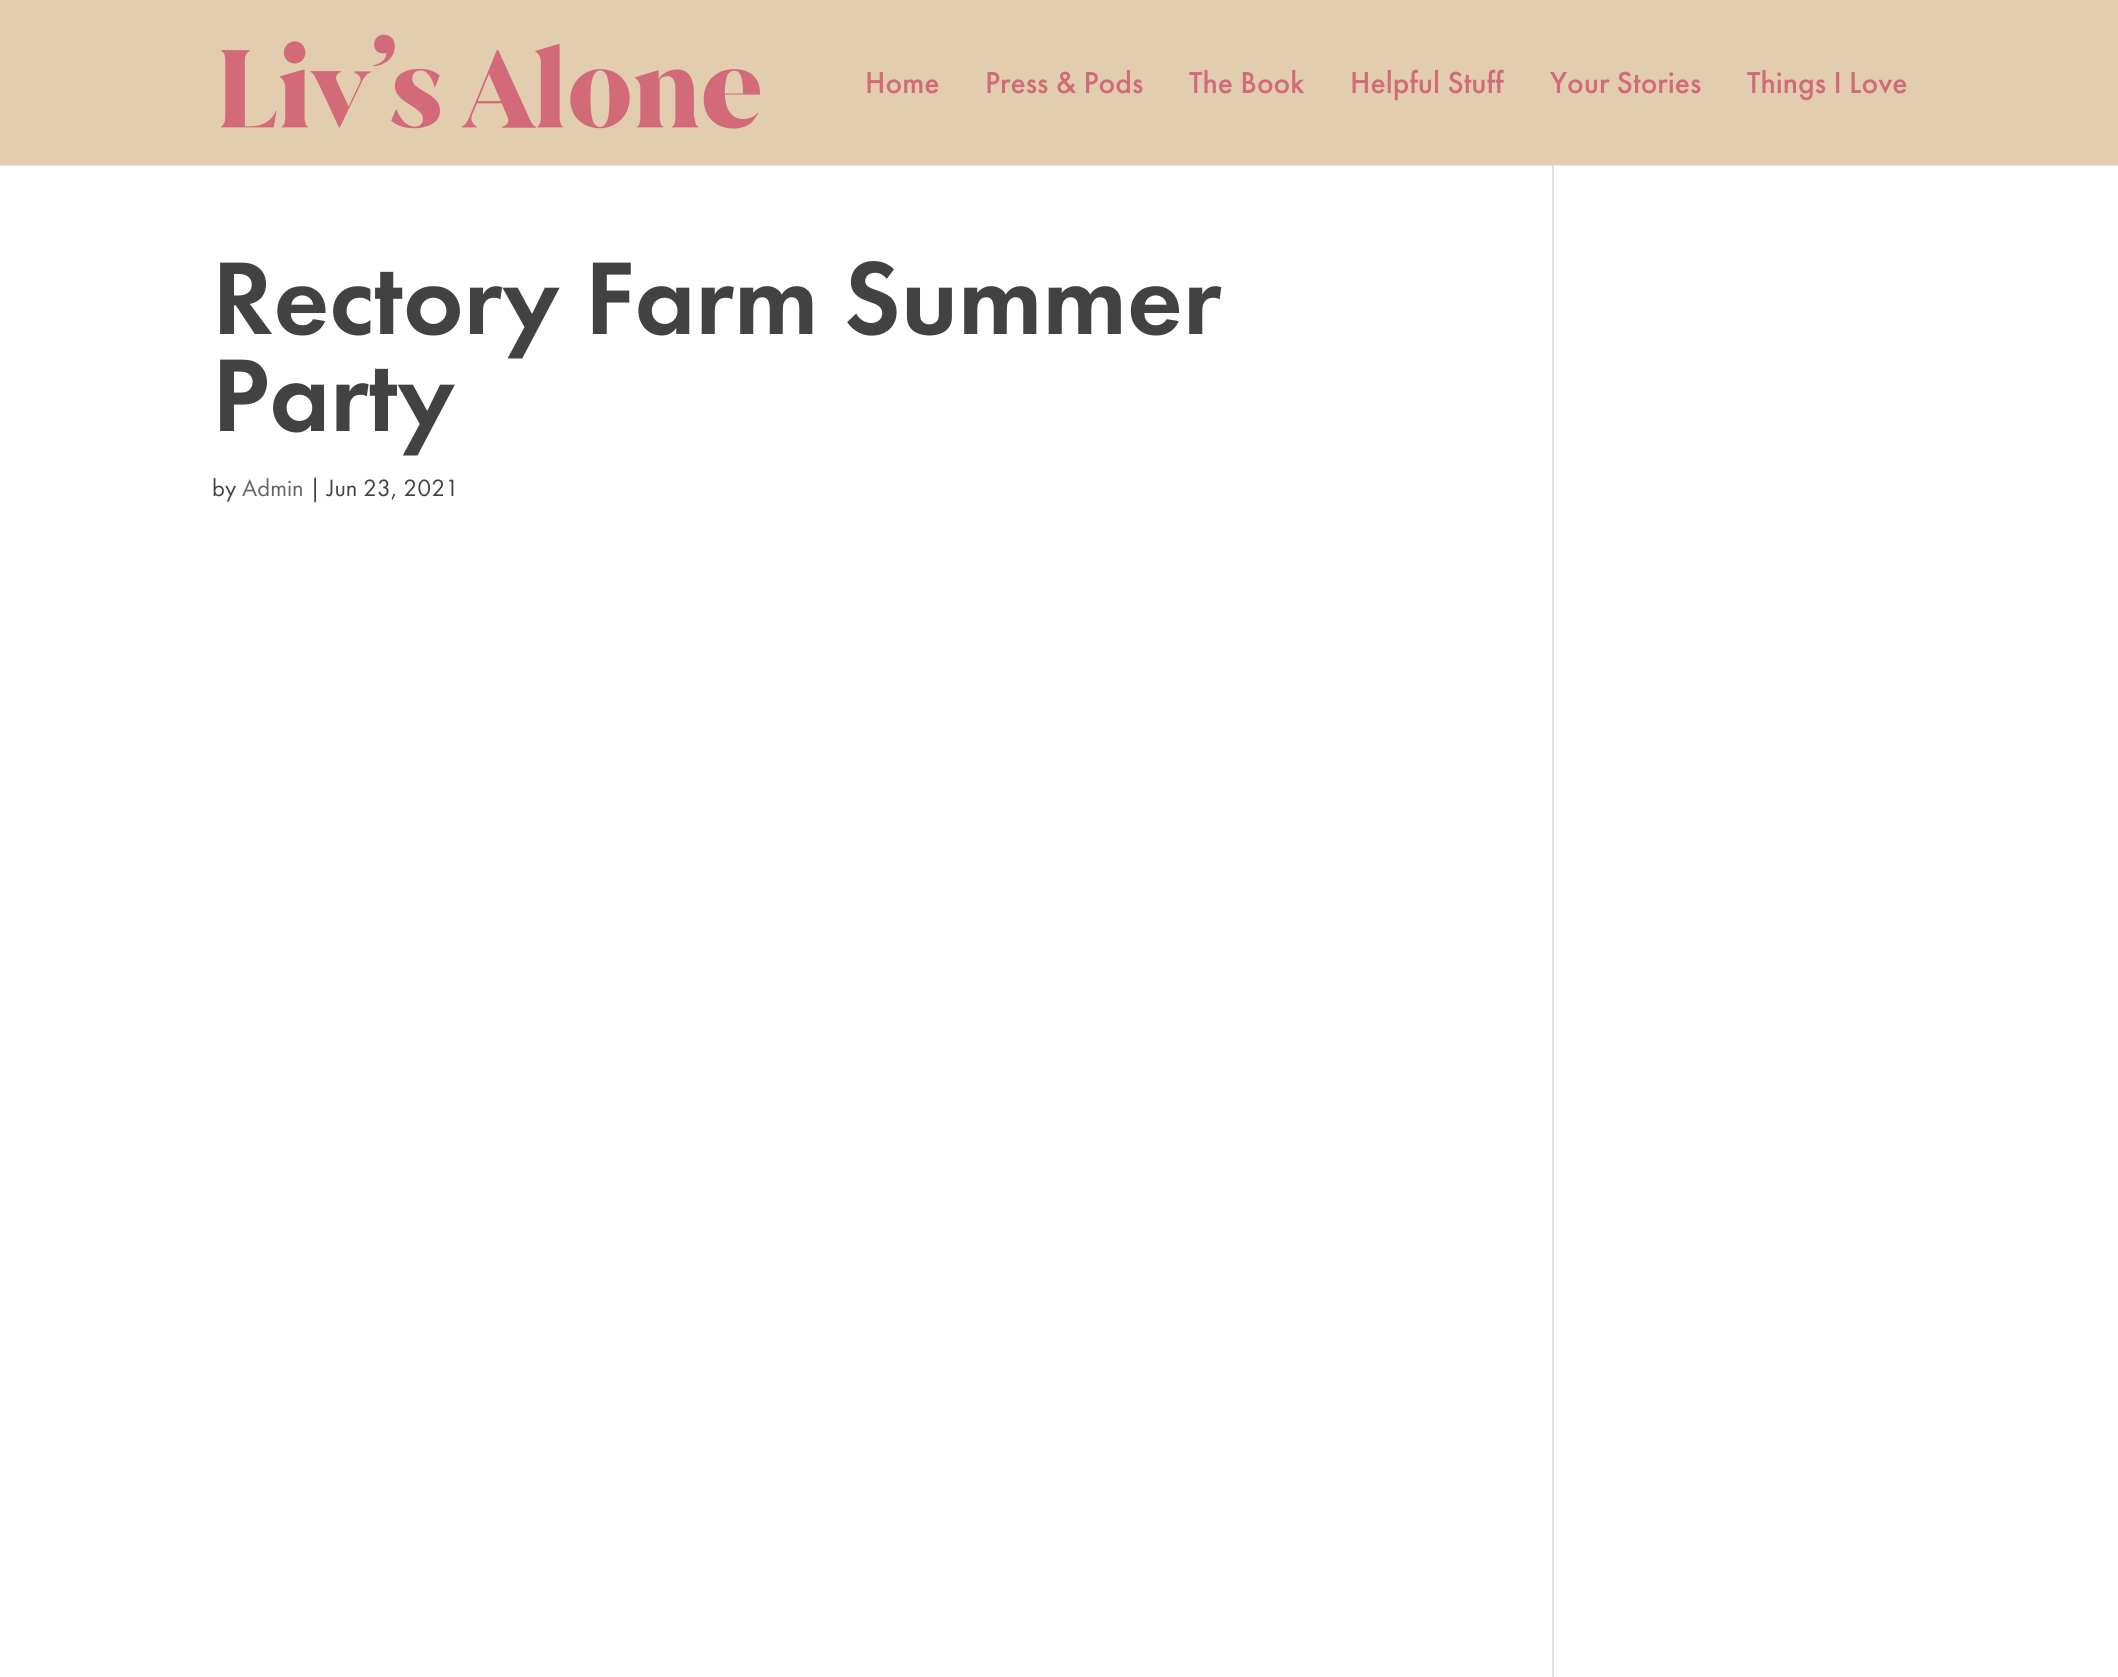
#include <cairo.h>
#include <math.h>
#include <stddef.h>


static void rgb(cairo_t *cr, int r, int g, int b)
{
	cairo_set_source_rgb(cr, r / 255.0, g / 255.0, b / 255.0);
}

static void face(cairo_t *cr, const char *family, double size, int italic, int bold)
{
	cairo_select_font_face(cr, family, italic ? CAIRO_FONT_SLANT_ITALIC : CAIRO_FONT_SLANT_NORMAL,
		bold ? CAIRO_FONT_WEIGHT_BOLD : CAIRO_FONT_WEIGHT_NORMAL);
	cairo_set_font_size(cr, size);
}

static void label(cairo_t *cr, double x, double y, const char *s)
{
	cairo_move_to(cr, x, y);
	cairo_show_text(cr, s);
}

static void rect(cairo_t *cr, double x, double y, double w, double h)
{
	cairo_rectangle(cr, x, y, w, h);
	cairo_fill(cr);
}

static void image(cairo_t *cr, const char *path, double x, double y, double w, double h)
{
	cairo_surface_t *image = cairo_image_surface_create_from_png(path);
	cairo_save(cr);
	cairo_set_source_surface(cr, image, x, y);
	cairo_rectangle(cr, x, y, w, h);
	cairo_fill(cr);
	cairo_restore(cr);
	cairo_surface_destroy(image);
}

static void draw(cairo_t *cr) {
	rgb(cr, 255, 255, 255);
	cairo_paint(cr);
	rgb(cr, 230, 230, 230);
	rect(cr, 0, 165, 2118, 1);
	rgb(cr, 226, 206, 175);
	rect(cr, 0, 0, 2118, 165);
	image(cr, "image0.png", 221, 34, 539, 95);
	face(cr, "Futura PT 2 Medium", 31.5, 0, 0);
	rgb(cr, 210, 106, 121);
	label(cr, 865, 93, "Home");
	label(cr, 985, 93, "Press & Pods");
	label(cr, 1189, 93, "The Book");
	label(cr, 1350, 93, "Helpful Stuff");
	label(cr, 1550, 93, "Your Stories");
	label(cr, 1747, 93, "Things I Love");
	face(cr, "Futura PT Medium", 107, 0, 0);
	rgb(cr, 66, 66, 66);
	label(cr, 212, 334, "Rectory Farm Summer");
	label(cr, 212, 431, "Party");
	face(cr, "Futura PT", 24.5, 0, 0);
	label(cr, 212, 496, "by");
	rgb(cr, 102, 102, 102);
	label(cr, 242, 496, "Admin");
	rgb(cr, 66, 66, 66);
	label(cr, 309, 496, "| Jun 23, 2021");
	rgb(cr, 226, 226, 226);
	rect(cr, 1552, 166, 2, 1511);
	rgb(cr, 203, 203, 203);
	rect(cr, 1552, 165, 2, 1);
}

int main(void) {
	cairo_surface_t *surface = cairo_image_surface_create(CAIRO_FORMAT_RGB24, 2118, 1677);
	cairo_t *cr = cairo_create(surface);
	cairo_font_options_t *options = cairo_font_options_create();
	cairo_font_options_set_hint_metrics(options, CAIRO_HINT_METRICS_OFF);
	cairo_font_options_set_hint_style(options, CAIRO_HINT_STYLE_NONE);
	cairo_set_font_options(cr, options);
	cairo_set_miter_limit(cr, 4);
	draw(cr);
	cairo_surface_write_to_png(surface, "render.png");
	cairo_font_options_destroy(options);
	cairo_destroy(cr);
	cairo_surface_destroy(surface);
	return 0;
}
